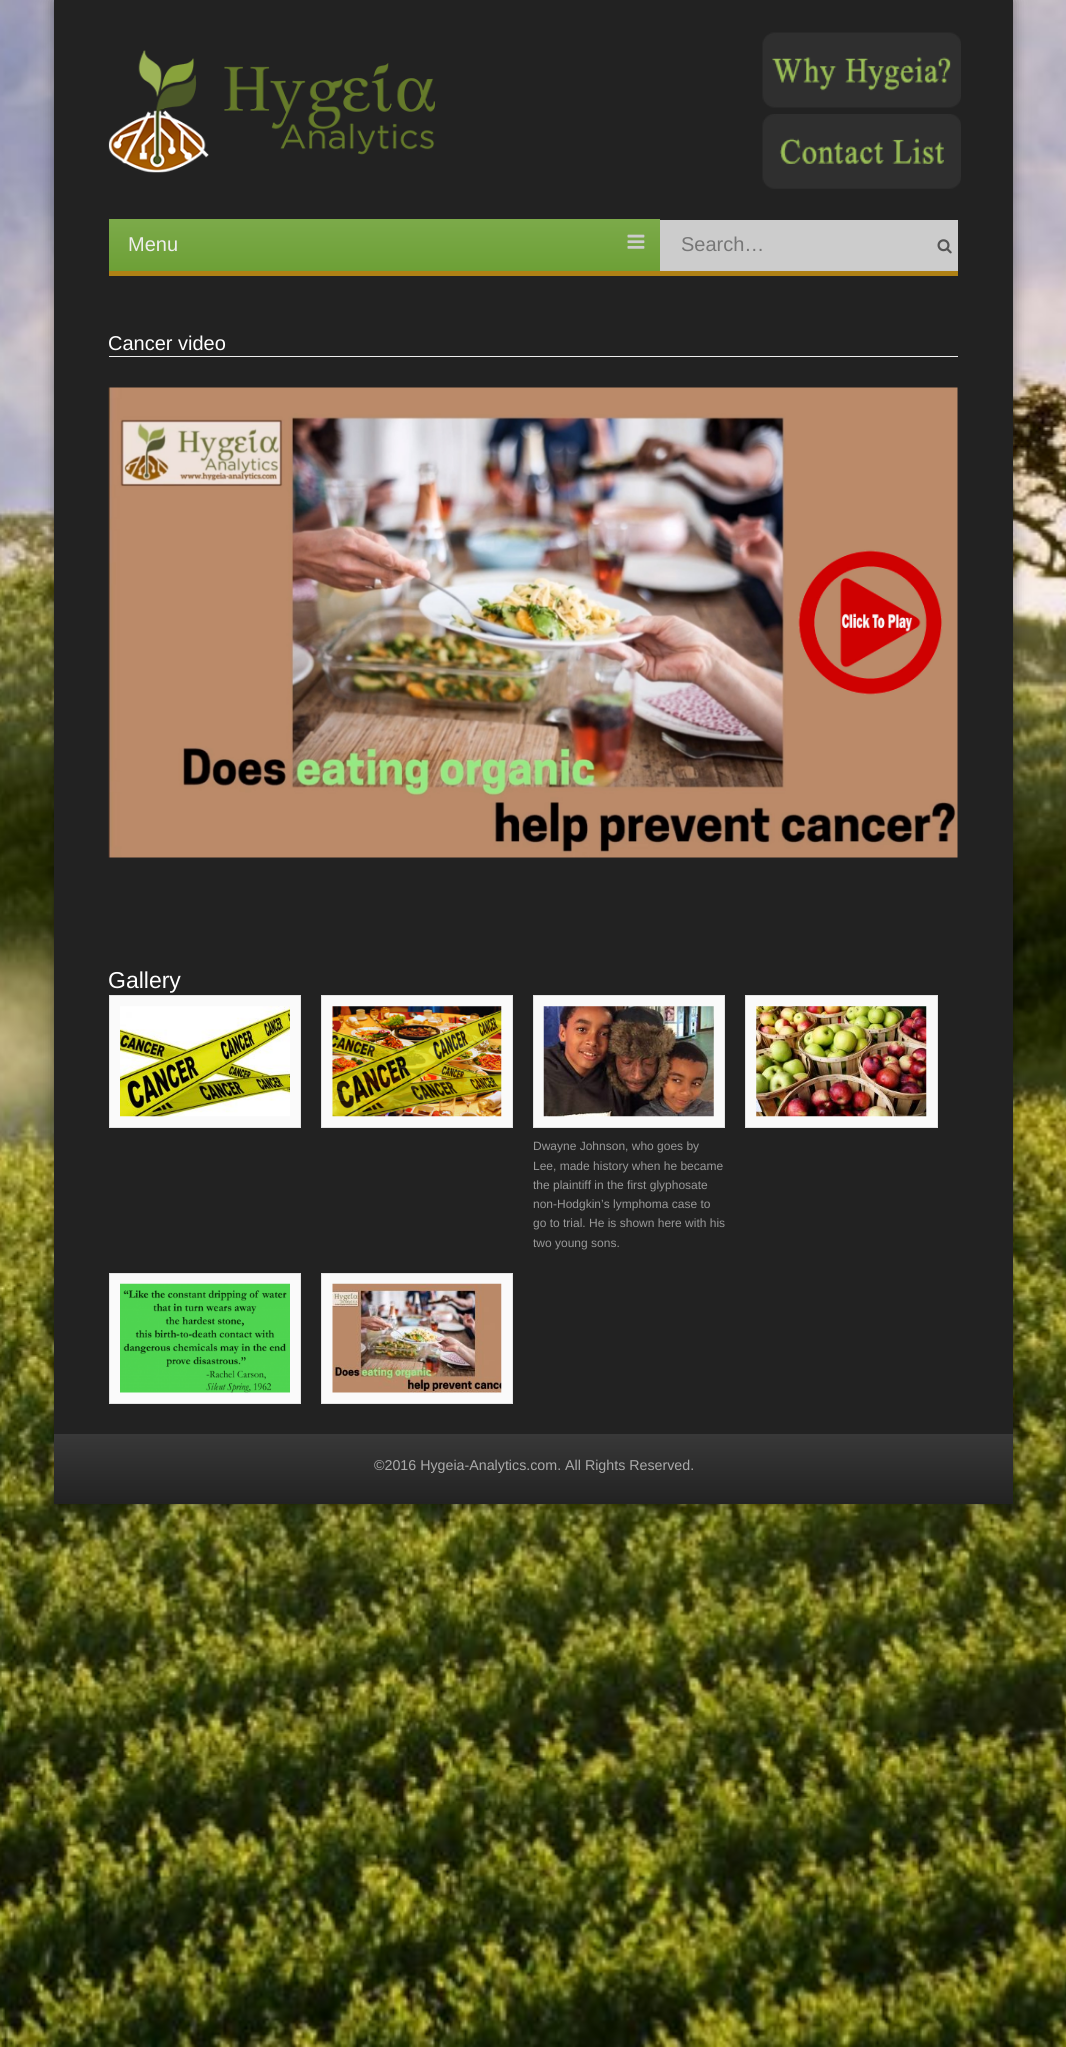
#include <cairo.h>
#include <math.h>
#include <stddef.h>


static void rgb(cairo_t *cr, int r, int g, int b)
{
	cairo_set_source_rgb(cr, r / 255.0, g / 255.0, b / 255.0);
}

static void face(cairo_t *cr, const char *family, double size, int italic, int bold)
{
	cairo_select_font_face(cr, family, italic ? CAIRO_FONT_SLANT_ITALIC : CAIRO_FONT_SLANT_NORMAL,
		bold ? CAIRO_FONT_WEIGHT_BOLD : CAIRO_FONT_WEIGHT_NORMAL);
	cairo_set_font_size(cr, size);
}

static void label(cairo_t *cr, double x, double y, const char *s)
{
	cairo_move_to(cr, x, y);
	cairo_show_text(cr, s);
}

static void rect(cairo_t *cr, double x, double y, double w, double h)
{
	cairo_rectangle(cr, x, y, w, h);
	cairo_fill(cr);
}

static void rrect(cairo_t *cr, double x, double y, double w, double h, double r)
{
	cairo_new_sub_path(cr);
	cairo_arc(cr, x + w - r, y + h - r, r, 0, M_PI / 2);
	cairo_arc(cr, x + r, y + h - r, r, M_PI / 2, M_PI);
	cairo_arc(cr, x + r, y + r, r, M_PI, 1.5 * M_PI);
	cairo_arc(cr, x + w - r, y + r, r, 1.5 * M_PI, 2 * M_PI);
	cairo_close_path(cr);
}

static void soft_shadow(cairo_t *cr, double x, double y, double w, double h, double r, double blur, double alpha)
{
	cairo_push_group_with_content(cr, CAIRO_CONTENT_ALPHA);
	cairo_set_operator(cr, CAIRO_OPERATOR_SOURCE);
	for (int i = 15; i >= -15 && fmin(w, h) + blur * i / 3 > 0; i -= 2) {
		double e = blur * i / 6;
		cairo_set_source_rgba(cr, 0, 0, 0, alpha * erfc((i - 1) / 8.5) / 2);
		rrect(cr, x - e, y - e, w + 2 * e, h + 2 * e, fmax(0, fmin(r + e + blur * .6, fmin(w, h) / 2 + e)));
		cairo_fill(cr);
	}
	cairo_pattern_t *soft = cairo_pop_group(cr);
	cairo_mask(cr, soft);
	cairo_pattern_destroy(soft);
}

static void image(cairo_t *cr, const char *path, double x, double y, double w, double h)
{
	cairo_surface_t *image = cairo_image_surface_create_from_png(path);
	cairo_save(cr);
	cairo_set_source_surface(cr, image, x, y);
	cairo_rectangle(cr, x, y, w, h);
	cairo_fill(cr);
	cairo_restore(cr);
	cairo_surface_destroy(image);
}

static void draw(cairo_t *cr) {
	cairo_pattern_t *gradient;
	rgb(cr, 255, 255, 255);
	cairo_paint(cr);
	image(cr, "image0.png", 0, 0, 1066, 2047);
	rgb(cr, 0, 0, 0);
	soft_shadow(cr, 54, 0, 959, 1504, 0, 7.5, 0.4);
	rgb(cr, 34, 34, 34);
	rect(cr, 54, 0, 959, 1434);
	image(cr, "image1.png", 108, 50, 327, 123);
	image(cr, "image2.png", 762, 32, 199, 76);
	image(cr, "image3.png", 762, 114, 199, 75);
	rgb(cr, 175, 129, 21);
	rect(cr, 109, 271, 849, 5);
	gradient = cairo_pattern_create_linear(384, 219, 384, 271);
	cairo_pattern_add_color_stop_rgba(gradient, 0, 0.486, 0.667, 0.29, 1);
	cairo_pattern_add_color_stop_rgba(gradient, 1, 0.427, 0.627, 0.212, 1);
	cairo_set_source(cr, gradient);
	cairo_pattern_destroy(gradient);
	rect(cr, 109, 219, 551, 52);
	face(cr, "Liberation Sans", 20, 0, 0);
	rgb(cr, 238, 238, 238);
	label(cr, 128, 251, "Menu");
	image(cr, "image4.png", 627, 234, 18, 15);
	rgb(cr, 204, 204, 204);
	rect(cr, 660, 220, 298, 51);
	rgb(cr, 119, 119, 119);
	label(cr, 681, 251, "Search…");
	image(cr, "image5.png", 937, 239, 15, 15);
	rgb(cr, 238, 238, 238);
	rect(cr, 109, 356, 849, 1);
	rgb(cr, 255, 255, 255);
	label(cr, 108, 350, "Cancer video");
	image(cr, "image6.png", 108, 387, 850, 471);
	face(cr, "Liberation Sans", 23, 0, 0);
	label(cr, 108, 988, "Gallery");
	rgb(cr, 250, 250, 250);
	cairo_rectangle(cr, 109.5, 995.5, 191, 132);
	cairo_fill_preserve(cr);
	rgb(cr, 228, 228, 228);
	cairo_set_line_width(cr, 1);
	cairo_stroke(cr);
	image(cr, "image7.png", 120, 1006, 170, 111);
	rgb(cr, 250, 250, 250);
	cairo_rectangle(cr, 321.5, 995.5, 191, 132);
	cairo_fill_preserve(cr);
	rgb(cr, 228, 228, 228);
	cairo_stroke(cr);
	image(cr, "image8.png", 332, 1006, 170, 111);
	rgb(cr, 250, 250, 250);
	cairo_rectangle(cr, 745.5, 995.5, 192, 132);
	cairo_fill_preserve(cr);
	rgb(cr, 228, 228, 228);
	cairo_stroke(cr);
	image(cr, "image9.png", 756, 1006, 171, 111);
	rgb(cr, 250, 250, 250);
	cairo_rectangle(cr, 533.5, 995.5, 191, 132);
	cairo_fill_preserve(cr);
	rgb(cr, 228, 228, 228);
	cairo_stroke(cr);
	image(cr, "image10.png", 543, 1006, 171, 111);
	face(cr, "Liberation Sans", 12, 0, 0);
	rgb(cr, 153, 153, 153);
	label(cr, 533, 1150, "Dwayne Johnson, who goes by");
	label(cr, 533, 1170, "Lee, made history when he became");
	label(cr, 533, 1189, "the plaintiff in the first glyphosate");
	label(cr, 533, 1208, "non-Hodgkin’s lymphoma case to");
	label(cr, 533, 1227, "go to trial. He is shown here with his");
	label(cr, 533, 1247, "two young sons.");
	rgb(cr, 250, 250, 250);
	cairo_rectangle(cr, 109.5, 1273.5, 191, 130);
	cairo_fill_preserve(cr);
	rgb(cr, 228, 228, 228);
	cairo_stroke(cr);
	image(cr, "image11.png", 120, 1283, 170, 110);
	rgb(cr, 250, 250, 250);
	cairo_rectangle(cr, 321.5, 1273.5, 191, 130);
	cairo_fill_preserve(cr);
	rgb(cr, 228, 228, 228);
	cairo_stroke(cr);
	image(cr, "image12.png", 332, 1283, 170, 110);
	gradient = cairo_pattern_create_linear(533, 1434, 533, 1504);
	cairo_pattern_add_color_stop_rgba(gradient, 0, 0.22, 0.22, 0.22, 1);
	cairo_pattern_add_color_stop_rgba(gradient, 1, 0.133, 0.133, 0.133, 1);
	cairo_set_source(cr, gradient);
	cairo_pattern_destroy(gradient);
	rect(cr, 54, 1434, 959, 70);
	face(cr, "Liberation Sans", 14.25, 0, 0);
	rgb(cr, 170, 170, 170);
	label(cr, 374, 1470, "©2016 Hygeia-Analytics.com. All Rights Reserved.");
}

int main(void) {
	cairo_surface_t *surface = cairo_image_surface_create(CAIRO_FORMAT_RGB24, 1066, 2047);
	cairo_t *cr = cairo_create(surface);
	cairo_font_options_t *options = cairo_font_options_create();
	cairo_font_options_set_hint_metrics(options, CAIRO_HINT_METRICS_OFF);
	cairo_font_options_set_hint_style(options, CAIRO_HINT_STYLE_NONE);
	cairo_set_font_options(cr, options);
	cairo_set_miter_limit(cr, 4);
	draw(cr);
	cairo_surface_write_to_png(surface, "render.png");
	cairo_font_options_destroy(options);
	cairo_destroy(cr);
	cairo_surface_destroy(surface);
	return 0;
}
